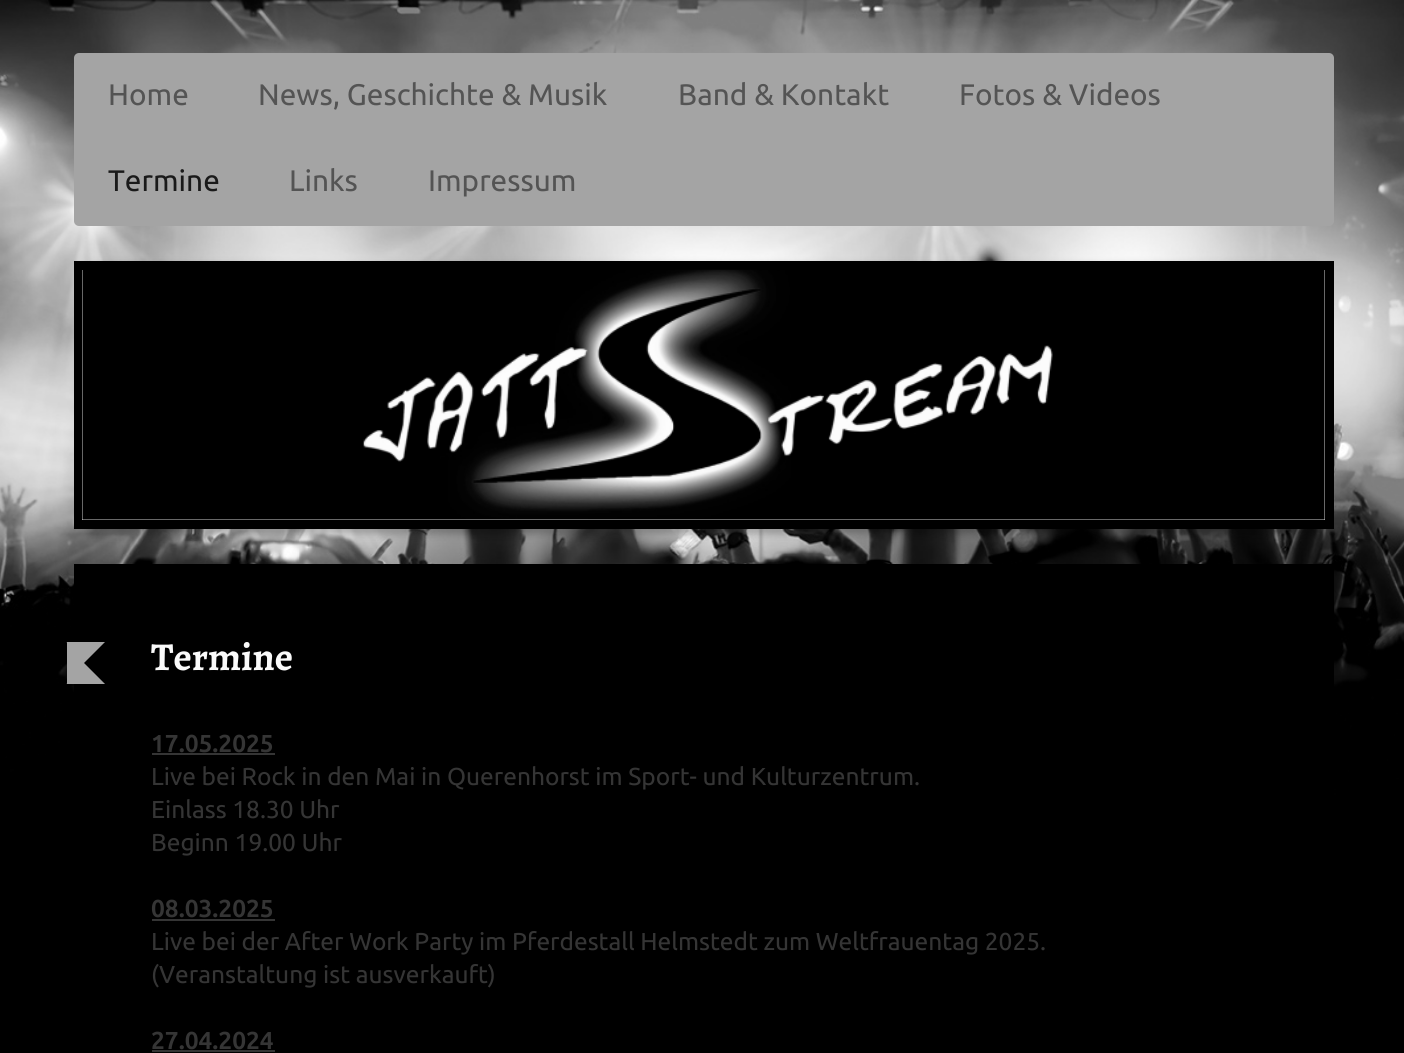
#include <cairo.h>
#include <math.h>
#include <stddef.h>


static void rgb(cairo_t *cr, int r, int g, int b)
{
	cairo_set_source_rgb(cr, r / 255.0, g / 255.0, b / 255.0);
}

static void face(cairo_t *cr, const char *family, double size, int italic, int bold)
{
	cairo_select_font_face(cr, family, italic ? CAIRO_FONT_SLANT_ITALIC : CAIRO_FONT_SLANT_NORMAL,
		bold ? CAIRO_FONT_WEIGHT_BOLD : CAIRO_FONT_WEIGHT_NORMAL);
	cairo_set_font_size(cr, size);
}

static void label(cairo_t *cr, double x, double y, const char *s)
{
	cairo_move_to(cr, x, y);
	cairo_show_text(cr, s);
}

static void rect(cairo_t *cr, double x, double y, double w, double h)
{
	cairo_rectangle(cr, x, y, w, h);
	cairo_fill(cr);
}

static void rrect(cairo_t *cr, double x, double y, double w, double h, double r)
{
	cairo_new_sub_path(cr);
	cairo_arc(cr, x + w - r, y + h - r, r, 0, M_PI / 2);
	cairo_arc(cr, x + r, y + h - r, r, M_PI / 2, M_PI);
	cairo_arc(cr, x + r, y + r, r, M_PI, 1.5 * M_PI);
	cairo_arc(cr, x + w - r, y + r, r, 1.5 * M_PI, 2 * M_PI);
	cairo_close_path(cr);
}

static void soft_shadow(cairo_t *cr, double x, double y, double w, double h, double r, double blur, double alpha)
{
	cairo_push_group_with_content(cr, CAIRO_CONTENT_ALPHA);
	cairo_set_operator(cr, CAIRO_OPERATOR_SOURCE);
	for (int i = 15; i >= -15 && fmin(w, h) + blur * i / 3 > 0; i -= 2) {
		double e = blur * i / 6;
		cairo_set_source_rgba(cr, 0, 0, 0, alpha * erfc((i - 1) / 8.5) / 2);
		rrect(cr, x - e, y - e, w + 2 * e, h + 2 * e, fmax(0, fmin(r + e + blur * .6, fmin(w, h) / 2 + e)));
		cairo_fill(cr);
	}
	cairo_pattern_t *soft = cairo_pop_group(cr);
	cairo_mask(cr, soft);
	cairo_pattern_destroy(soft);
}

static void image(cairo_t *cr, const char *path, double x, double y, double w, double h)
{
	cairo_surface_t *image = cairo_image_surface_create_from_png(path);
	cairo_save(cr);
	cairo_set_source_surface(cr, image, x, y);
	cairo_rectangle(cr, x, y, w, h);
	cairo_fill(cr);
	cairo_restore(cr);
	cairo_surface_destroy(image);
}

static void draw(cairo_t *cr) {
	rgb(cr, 0, 0, 0);
	cairo_paint(cr);
	image(cr, "image0.png", 0, 0, 1404, 834);
	rgb(cr, 164, 164, 164);
	rrect(cr, 74, 53, 1260, 173, 5);
	cairo_fill(cr);
	face(cr, "Ubuntu", 29.75, 0, 0);
	rgb(cr, 84, 84, 84);
	label(cr, 108, 105, "Home");
	label(cr, 258, 105, "News, Geschichte & Musik");
	label(cr, 678, 105, "Band & Kontakt");
	label(cr, 959, 105, "Fotos & Videos");
	rgb(cr, 26, 26, 26);
	label(cr, 108, 191, "Termine");
	rgb(cr, 84, 84, 84);
	label(cr, 289, 191, "Links");
	label(cr, 428, 191, "Impressum");
	rgb(cr, 0, 0, 0);
	soft_shadow(cr, 91, 266, 1225, 268, 0, 4.5, 0.3);
	cairo_rectangle(cr, 78.5, 265.5, 1251, 259);
	rgb(cr, 0, 0, 0);
	cairo_set_line_width(cr, 9);
	cairo_stroke(cr);
	rgb(cr, 238, 238, 238);
	rect(cr, 82, 270, 1243, 250);
	image(cr, "image1.png", 82, 269, 1243, 251);
	rgb(cr, 0, 0, 0);
	rect(cr, 74, 564, 1260, 270);
	cairo_set_source_rgba(cr, 0, 0, 0, 0.4);
	rect(cr, 67, 684, 7, 2);
	rgb(cr, 164, 164, 164);
	cairo_new_path(cr);
	cairo_move_to(cr, 66.5, 642);
	cairo_line_to(cr, 105, 642);
	cairo_line_to(cr, 84, 663);
	cairo_close_path(cr);
	cairo_move_to(cr, 105, 684);
	cairo_line_to(cr, 66.5, 684);
	cairo_line_to(cr, 84, 663);
	cairo_close_path(cr);
	cairo_fill(cr);
	rect(cr, 67, 642, 17, 42);
	face(cr, "Alegreya", 39.5, 0, 1);
	rgb(cr, 250, 250, 250);
	label(cr, 151, 670, "Termine");
	face(cr, "Ubuntu", 24.5, 0, 1);
	rgb(cr, 53, 53, 53);
	label(cr, 151, 752, "17.05.2025");
	rect(cr, 152, 753, 123, 2);
	face(cr, "Ubuntu", 24.5, 0, 0);
	label(cr, 151, 785, "Live bei Rock in den Mai in Querenhorst im Sport- und Kulturzentrum.");
	label(cr, 151, 818, "Einlass 18.30 Uhr");
	label(cr, 151, 851, "Beginn 19.00 Uhr");
	face(cr, "Ubuntu", 24.5, 0, 1);
	label(cr, 151, 917, "08.03.2025");
	rect(cr, 152, 919, 123, 2);
	face(cr, "Ubuntu", 24.5, 0, 0);
	label(cr, 151, 950, "Live bei der After Work Party im Pferdestall Helmstedt zum Weltfrauentag 2025.");
	label(cr, 151, 983, "(Veranstaltung ist ausverkauft)");
	face(cr, "Ubuntu", 24.5, 0, 1);
	label(cr, 151, 1049, "27.04.2024");
	rect(cr, 152, 1050, 123, 2);
}

int main(void) {
	cairo_surface_t *surface = cairo_image_surface_create(CAIRO_FORMAT_RGB24, 1404, 1053);
	cairo_t *cr = cairo_create(surface);
	cairo_font_options_t *options = cairo_font_options_create();
	cairo_font_options_set_hint_metrics(options, CAIRO_HINT_METRICS_OFF);
	cairo_font_options_set_hint_style(options, CAIRO_HINT_STYLE_NONE);
	cairo_set_font_options(cr, options);
	cairo_set_miter_limit(cr, 4);
	draw(cr);
	cairo_surface_write_to_png(surface, "render.png");
	cairo_font_options_destroy(options);
	cairo_destroy(cr);
	cairo_surface_destroy(surface);
	return 0;
}
